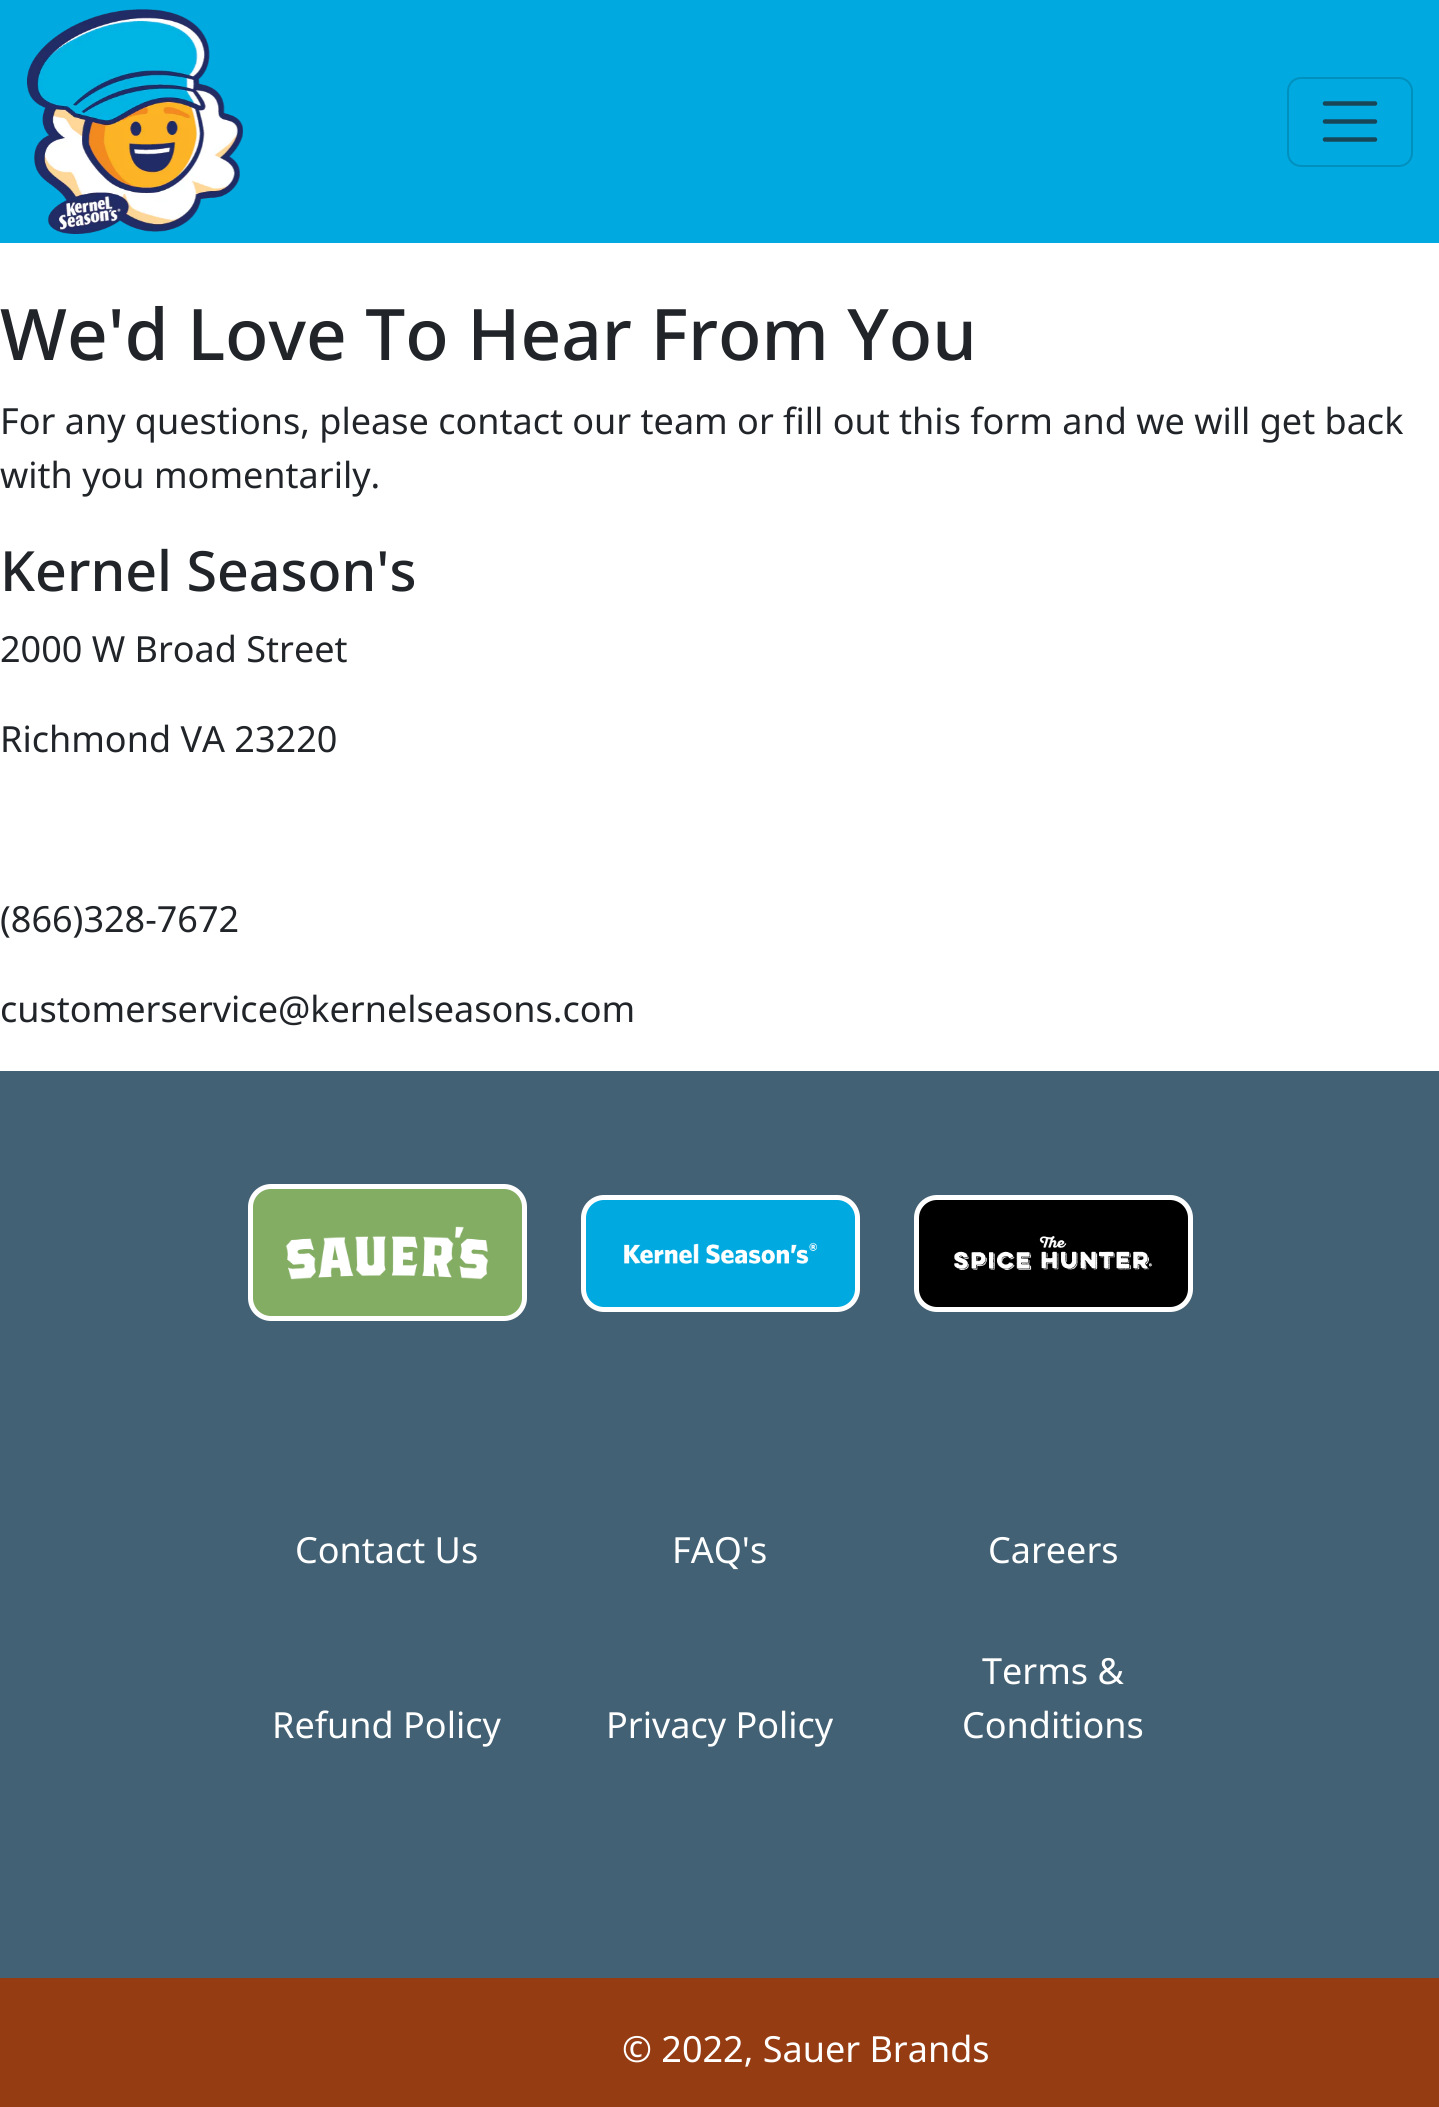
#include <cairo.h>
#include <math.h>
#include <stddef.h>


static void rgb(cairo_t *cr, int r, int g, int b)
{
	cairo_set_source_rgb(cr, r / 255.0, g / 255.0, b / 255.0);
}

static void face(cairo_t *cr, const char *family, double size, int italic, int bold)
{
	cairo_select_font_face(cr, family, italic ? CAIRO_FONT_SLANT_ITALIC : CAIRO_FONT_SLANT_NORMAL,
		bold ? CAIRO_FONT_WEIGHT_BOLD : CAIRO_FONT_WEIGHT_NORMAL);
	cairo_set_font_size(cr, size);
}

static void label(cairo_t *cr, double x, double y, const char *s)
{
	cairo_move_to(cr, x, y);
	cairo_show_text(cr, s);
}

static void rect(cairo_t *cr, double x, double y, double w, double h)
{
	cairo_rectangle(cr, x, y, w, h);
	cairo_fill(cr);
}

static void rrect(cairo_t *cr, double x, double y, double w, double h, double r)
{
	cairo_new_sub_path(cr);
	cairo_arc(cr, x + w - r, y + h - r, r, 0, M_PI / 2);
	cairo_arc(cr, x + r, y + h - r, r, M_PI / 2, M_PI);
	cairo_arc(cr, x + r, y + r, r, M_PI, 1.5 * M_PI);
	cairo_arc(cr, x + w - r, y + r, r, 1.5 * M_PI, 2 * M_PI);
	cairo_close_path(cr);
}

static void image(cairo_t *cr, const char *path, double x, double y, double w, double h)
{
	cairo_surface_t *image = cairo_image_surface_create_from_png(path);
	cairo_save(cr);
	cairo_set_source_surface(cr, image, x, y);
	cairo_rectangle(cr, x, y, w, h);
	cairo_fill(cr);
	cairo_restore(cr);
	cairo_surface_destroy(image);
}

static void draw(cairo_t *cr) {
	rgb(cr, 255, 255, 255);
	cairo_paint(cr);
	rgb(cr, 0, 169, 224);
	rect(cr, 0, 0, 1439, 243);
	image(cr, "image0.png", 27, 9, 216, 225);
	rrect(cr, 1288, 78, 124, 88, 13);
	rgb(cr, 0, 144, 190);
	cairo_stroke(cr);
	cairo_new_path(cr);
	cairo_move_to(cr, 1325, 103.5);
	cairo_line_to(cr, 1375, 103.5);
	cairo_move_to(cr, 1325, 121.5);
	cairo_line_to(cr, 1375, 121.5);
	cairo_move_to(cr, 1325, 139.5);
	cairo_line_to(cr, 1375, 139.5);
	rgb(cr, 25, 70, 87);
	cairo_set_line_width(cr, 4.5);
	cairo_set_line_cap(cr, CAIRO_LINE_CAP_ROUND);
	cairo_stroke(cr);
	face(cr, "Noto Sans Medium", 71.1, 0, 0);
	rgb(cr, 33, 37, 41);
	label(cr, 0, 360, "We'd Love To Hear From You");
	face(cr, "Noto Sans", 36, 0, 0);
	label(cr, 0, 434, "For any questions, please contact our team or fill out this form and we will get back");
	label(cr, 0, 488, "with you momentarily.");
	face(cr, "Noto Sans Medium", 55.5, 0, 0);
	label(cr, 0, 591, "Kernel Season's");
	face(cr, "Noto Sans", 36, 0, 0);
	label(cr, 0, 662, "2000 W Broad Street");
	label(cr, 0, 752, "Richmond VA 23220");
	label(cr, 0, 932, "(866)328-7672");
	label(cr, 0, 1022, "customerservice@kernelseasons.com");
	rgb(cr, 67, 97, 116);
	rect(cr, 0, 1071, 1439, 907);
	rgb(cr, 132, 173, 100);
	rrect(cr, 250.5, 1186.5, 274, 132, 20.5);
	cairo_fill_preserve(cr);
	rgb(cr, 255, 255, 255);
	cairo_set_line_width(cr, 5);
	cairo_set_line_cap(cr, CAIRO_LINE_CAP_BUTT);
	cairo_stroke(cr);
	image(cr, "image1.png", 285, 1226, 204, 54);
	rgb(cr, 0, 169, 224);
	rrect(cr, 583.5, 1197.5, 274, 112, 20.5);
	cairo_fill_preserve(cr);
	rgb(cr, 255, 255, 255);
	cairo_stroke(cr);
	image(cr, "image2.png", 624, 1242, 194, 22);
	rgb(cr, 0, 0, 0);
	rrect(cr, 916.5, 1197.5, 274, 112, 20.5);
	cairo_fill_preserve(cr);
	rgb(cr, 255, 255, 255);
	cairo_stroke(cr);
	image(cr, "image3.png", 954, 1236, 199, 34);
	label(cr, 295, 1563, "Contact Us");
	label(cr, 672, 1563, "FAQ's");
	label(cr, 988, 1563, "Careers");
	label(cr, 272, 1738, "Refund Policy");
	label(cr, 606, 1738, "Privacy Policy");
	label(cr, 982, 1684, "Terms &");
	label(cr, 962, 1738, "Conditions");
	rgb(cr, 150, 60, 19);
	rect(cr, 0, 1978, 1439, 129);
	rgb(cr, 255, 255, 255);
	label(cr, 622, 2062, "© 2022, Sauer Brands");
}

int main(void) {
	cairo_surface_t *surface = cairo_image_surface_create(CAIRO_FORMAT_RGB24, 1439, 2107);
	cairo_t *cr = cairo_create(surface);
	cairo_font_options_t *options = cairo_font_options_create();
	cairo_font_options_set_hint_metrics(options, CAIRO_HINT_METRICS_OFF);
	cairo_font_options_set_hint_style(options, CAIRO_HINT_STYLE_NONE);
	cairo_set_font_options(cr, options);
	cairo_set_miter_limit(cr, 4);
	draw(cr);
	cairo_surface_write_to_png(surface, "render.png");
	cairo_font_options_destroy(options);
	cairo_destroy(cr);
	cairo_surface_destroy(surface);
	return 0;
}
